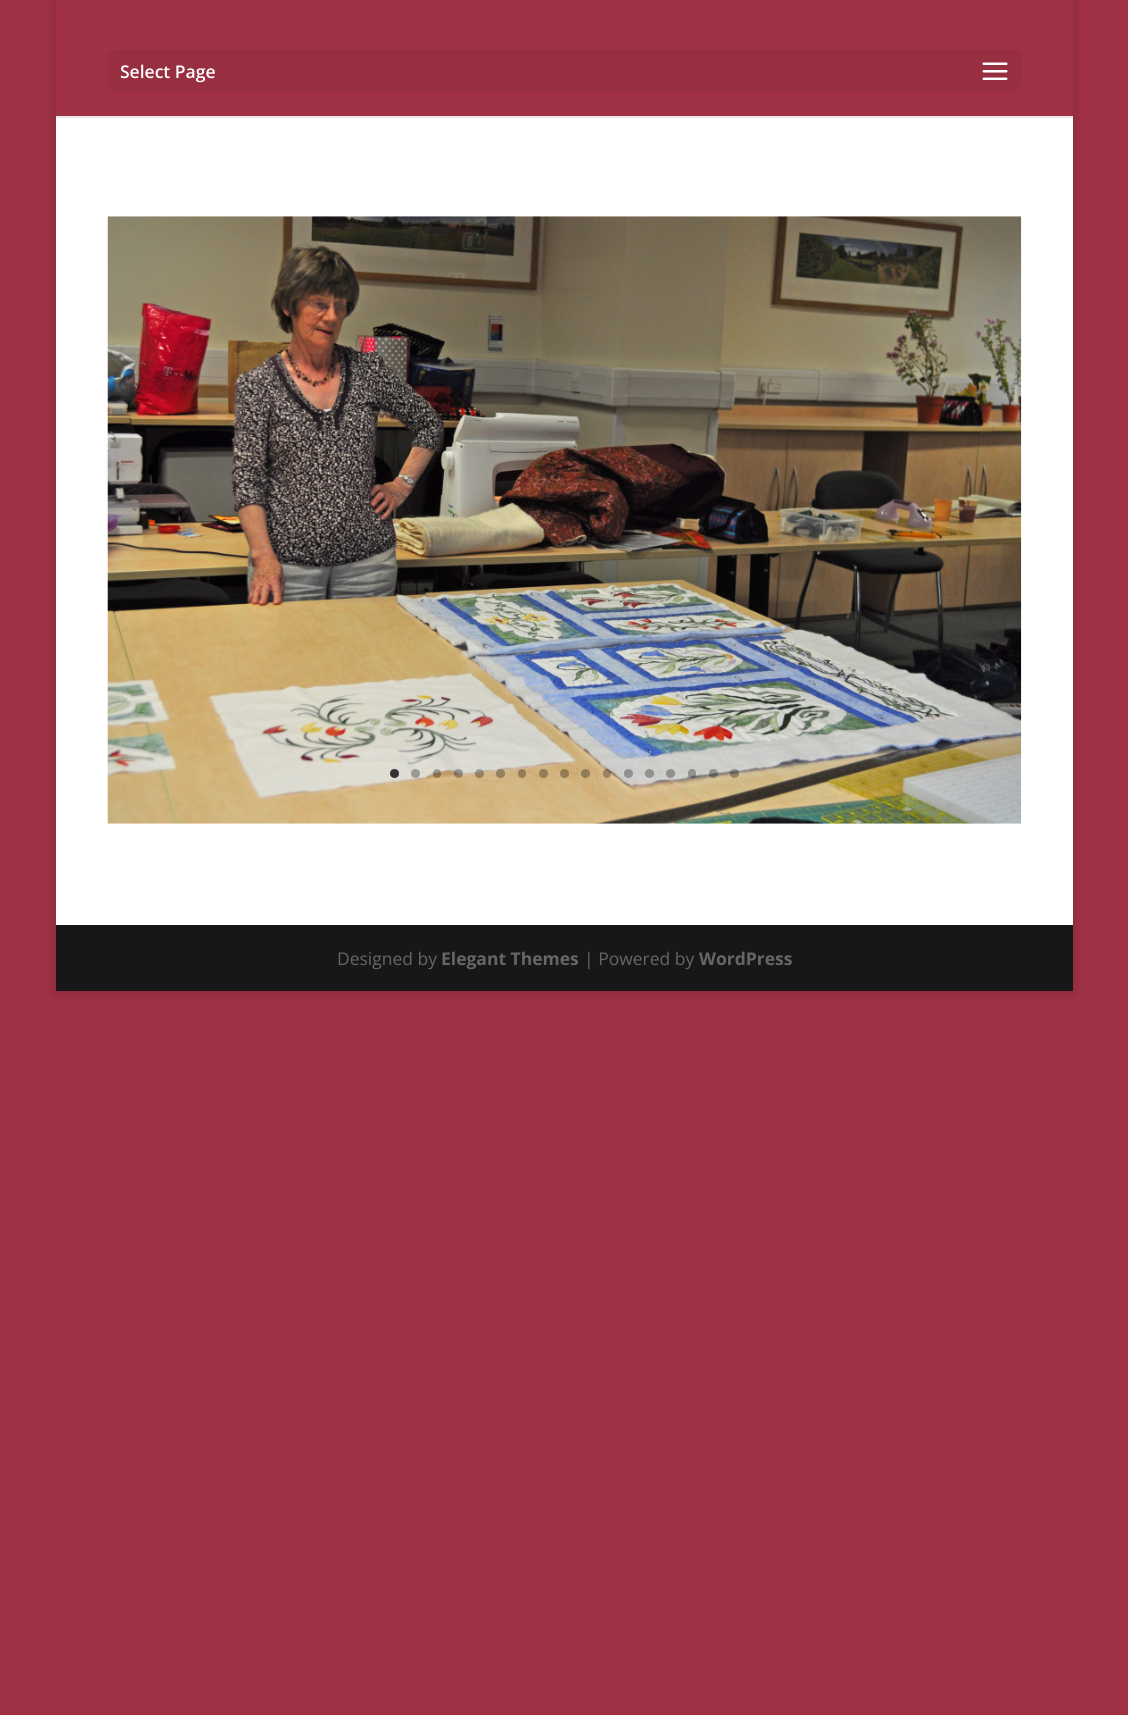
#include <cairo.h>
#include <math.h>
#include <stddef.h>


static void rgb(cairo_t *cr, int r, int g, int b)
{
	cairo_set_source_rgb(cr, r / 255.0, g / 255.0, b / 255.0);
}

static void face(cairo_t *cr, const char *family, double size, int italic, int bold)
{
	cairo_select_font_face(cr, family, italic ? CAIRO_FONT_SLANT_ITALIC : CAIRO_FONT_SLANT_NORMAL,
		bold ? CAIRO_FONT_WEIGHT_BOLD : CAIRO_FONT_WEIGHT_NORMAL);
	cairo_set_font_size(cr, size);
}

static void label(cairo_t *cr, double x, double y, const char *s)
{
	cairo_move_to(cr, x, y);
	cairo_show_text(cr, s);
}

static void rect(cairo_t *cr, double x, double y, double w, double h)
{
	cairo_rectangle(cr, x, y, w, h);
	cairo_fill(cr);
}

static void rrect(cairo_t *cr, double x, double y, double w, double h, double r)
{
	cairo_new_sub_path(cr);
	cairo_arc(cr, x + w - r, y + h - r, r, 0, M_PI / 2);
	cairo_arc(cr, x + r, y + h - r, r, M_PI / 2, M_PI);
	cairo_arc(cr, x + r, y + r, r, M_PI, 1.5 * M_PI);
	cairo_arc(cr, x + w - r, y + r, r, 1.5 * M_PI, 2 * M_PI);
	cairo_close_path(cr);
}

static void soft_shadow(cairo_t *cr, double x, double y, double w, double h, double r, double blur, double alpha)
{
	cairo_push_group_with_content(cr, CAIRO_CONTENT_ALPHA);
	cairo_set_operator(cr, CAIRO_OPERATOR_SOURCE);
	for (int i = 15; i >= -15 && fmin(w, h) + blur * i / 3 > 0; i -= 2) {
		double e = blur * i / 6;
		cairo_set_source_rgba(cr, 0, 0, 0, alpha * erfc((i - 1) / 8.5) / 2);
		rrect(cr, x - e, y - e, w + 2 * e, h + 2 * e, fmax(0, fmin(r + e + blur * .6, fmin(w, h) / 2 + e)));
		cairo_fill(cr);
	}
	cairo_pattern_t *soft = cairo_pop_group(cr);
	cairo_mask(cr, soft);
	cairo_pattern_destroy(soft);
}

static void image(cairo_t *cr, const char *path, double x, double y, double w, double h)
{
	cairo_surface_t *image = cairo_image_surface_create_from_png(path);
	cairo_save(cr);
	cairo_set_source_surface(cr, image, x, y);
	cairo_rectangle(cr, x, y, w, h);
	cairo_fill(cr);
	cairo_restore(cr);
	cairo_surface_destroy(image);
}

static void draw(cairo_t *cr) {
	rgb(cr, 160, 49, 68);
	cairo_paint(cr);
	rgb(cr, 0, 0, 0);
	soft_shadow(cr, 56, 0, 1017, 991, 0, 6, 0.2);
	rgb(cr, 255, 255, 255);
	rect(cr, 56, 116, 1017, 809);
	cairo_set_source_rgba(cr, 0, 0, 0, 0.1);
	cairo_new_path(cr);
	cairo_move_to(cr, 56, 1);
	cairo_line_to(cr, 56, 118);
	cairo_line_to(cr, 1073, 118);
	cairo_line_to(cr, 1073, 1);
	cairo_line_to(cr, 1072, 1);
	cairo_line_to(cr, 1072, 116);
	cairo_line_to(cr, 56, 116);
	cairo_close_path(cr);
	cairo_fill(cr);
	rgb(cr, 160, 49, 68);
	rect(cr, 56, 0, 1017, 116);
	rgb(cr, 152, 47, 65);
	rrect(cr, 108, 50, 913, 41, 6);
	cairo_fill(cr);
	face(cr, "Open Sans SemiBold", 17.5, 0, 0);
	rgb(cr, 255, 255, 255);
	label(cr, 120, 78, "Select Page");
	image(cr, "image0.png", 982, 62, 26, 18);
	image(cr, "image1.png", 107, 216, 915, 608);
	rgb(cr, 51, 51, 51);
	cairo_arc(cr, 394.5, 773.5, 4.5, 0, 2 * M_PI);
	cairo_fill(cr);
	cairo_set_source_rgba(cr, 0, 0, 0, 0.3);
	cairo_arc(cr, 415.5, 773.5, 4.5, 0, 2 * M_PI);
	cairo_fill(cr);
	rrect(cr, 433, 769, 8, 9, 4);
	cairo_fill(cr);
	cairo_arc(cr, 458.5, 773.5, 4.5, 0, 2 * M_PI);
	cairo_fill(cr);
	cairo_arc(cr, 479.5, 773.5, 4.5, 0, 2 * M_PI);
	cairo_fill(cr);
	cairo_arc(cr, 500.5, 773.5, 4.5, 0, 2 * M_PI);
	cairo_fill(cr);
	rrect(cr, 518, 769, 8, 9, 4);
	cairo_fill(cr);
	cairo_arc(cr, 543.5, 773.5, 4.5, 0, 2 * M_PI);
	cairo_fill(cr);
	cairo_arc(cr, 564.5, 773.5, 4.5, 0, 2 * M_PI);
	cairo_fill(cr);
	cairo_arc(cr, 585.5, 773.5, 4.5, 0, 2 * M_PI);
	cairo_fill(cr);
	rrect(cr, 603, 769, 8, 9, 4);
	cairo_fill(cr);
	cairo_arc(cr, 628.5, 773.5, 4.5, 0, 2 * M_PI);
	cairo_fill(cr);
	cairo_arc(cr, 649.5, 773.5, 4.5, 0, 2 * M_PI);
	cairo_fill(cr);
	cairo_arc(cr, 670.5, 773.5, 4.5, 0, 2 * M_PI);
	cairo_fill(cr);
	rrect(cr, 688, 769, 8, 9, 4);
	cairo_fill(cr);
	cairo_arc(cr, 713.5, 773.5, 4.5, 0, 2 * M_PI);
	cairo_fill(cr);
	cairo_arc(cr, 734.5, 773.5, 4.5, 0, 2 * M_PI);
	cairo_fill(cr);
	rgb(cr, 23, 23, 23);
	rect(cr, 56, 925, 1017, 66);
	face(cr, "Open Sans", 17.5, 0, 0);
	rgb(cr, 102, 102, 102);
	label(cr, 337, 965, "Designed by");
	face(cr, "Open Sans", 17.5, 0, 1);
	label(cr, 441, 965, "Elegant Themes");
	face(cr, "Open Sans", 17.5, 0, 0);
	label(cr, 584, 965, "| Powered by");
	face(cr, "Open Sans", 17.5, 0, 1);
	label(cr, 699, 965, "WordPress");
}

int main(void) {
	cairo_surface_t *surface = cairo_image_surface_create(CAIRO_FORMAT_RGB24, 1128, 1715);
	cairo_t *cr = cairo_create(surface);
	cairo_font_options_t *options = cairo_font_options_create();
	cairo_font_options_set_hint_metrics(options, CAIRO_HINT_METRICS_OFF);
	cairo_font_options_set_hint_style(options, CAIRO_HINT_STYLE_NONE);
	cairo_set_font_options(cr, options);
	cairo_set_miter_limit(cr, 4);
	draw(cr);
	cairo_surface_write_to_png(surface, "render.png");
	cairo_font_options_destroy(options);
	cairo_destroy(cr);
	cairo_surface_destroy(surface);
	return 0;
}
